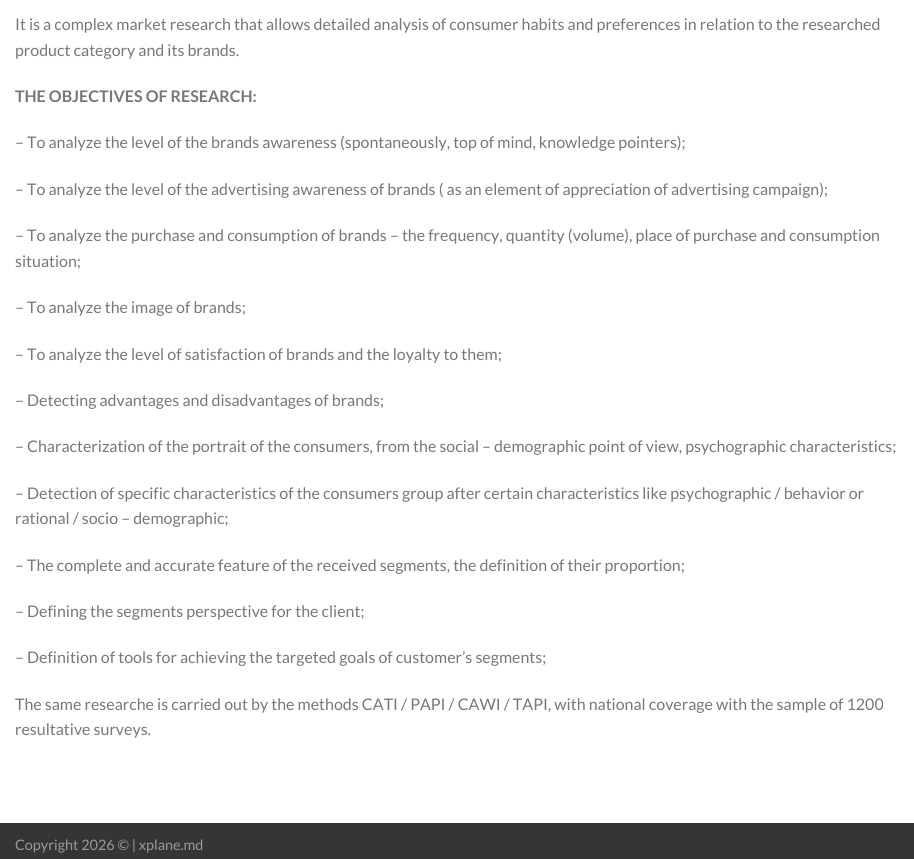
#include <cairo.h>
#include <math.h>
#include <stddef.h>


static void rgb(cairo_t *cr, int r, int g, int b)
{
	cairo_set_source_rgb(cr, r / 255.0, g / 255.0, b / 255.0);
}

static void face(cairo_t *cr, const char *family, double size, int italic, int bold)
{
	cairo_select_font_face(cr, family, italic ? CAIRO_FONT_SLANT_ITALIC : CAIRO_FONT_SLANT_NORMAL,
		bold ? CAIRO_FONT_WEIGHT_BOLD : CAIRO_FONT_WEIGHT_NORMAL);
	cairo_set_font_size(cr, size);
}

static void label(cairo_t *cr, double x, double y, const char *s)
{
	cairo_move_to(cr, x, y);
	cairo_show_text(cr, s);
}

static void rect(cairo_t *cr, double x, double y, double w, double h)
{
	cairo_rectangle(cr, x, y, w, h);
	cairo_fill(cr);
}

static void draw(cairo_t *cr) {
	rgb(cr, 255, 255, 255);
	cairo_paint(cr);
	face(cr, "Lato", 16, 0, 0);
	rgb(cr, 119, 119, 119);
	label(cr, 15, 30, "It is a complex market research that allows detailed analysis of consumer habits and preferences in relation to the researched");
	label(cr, 15, 56, "product category and its brands.");
	face(cr, "Lato", 16, 0, 1);
	label(cr, 15, 102, "THE OBJECTIVES OF RESEARCH:");
	face(cr, "Lato", 16, 0, 0);
	label(cr, 15, 148, "– To analyze the level of the brands awareness (spontaneously, top of mind, knowledge pointers);");
	label(cr, 15, 195, "– To analyze the level of the advertising awareness of brands ( as an element of appreciation of advertising campaign);");
	label(cr, 15, 241, "– To analyze the purchase and consumption of brands – the frequency, quantity (volume), place of purchase and consumption");
	label(cr, 15, 267, "situation;");
	label(cr, 15, 313, "– To analyze the image of brands;");
	label(cr, 15, 360, "– To analyze the level of satisfaction of brands and the loyalty to them;");
	label(cr, 15, 406, "– Detecting advantages and disadvantages of brands;");
	label(cr, 15, 452, "– Characterization of the portrait of the consumers, from the social – demographic point of view, psychographic characteristics;");
	label(cr, 15, 499, "– Detection of specific characteristics of the consumers group after certain characteristics like psychographic / behavior or");
	label(cr, 15, 524, "rational / socio – demographic;");
	label(cr, 15, 571, "– The complete and accurate feature of the received segments, the definition of their proportion;");
	label(cr, 15, 617, "– Defining the segments perspective for the client;");
	label(cr, 15, 663, "– Definition of tools for achieving the targeted goals of customer’s segments;");
	label(cr, 15, 710, "The same researche is carried out by the methods CATI / PAPI / CAWI / TAPI, with national coverage with the sample of 1200");
	label(cr, 15, 735, "resultative surveys.");
	rgb(cr, 53, 53, 53);
	rect(cr, 0, 823, 914, 36);
	face(cr, "Lato", 14.4, 0, 0);
	rgb(cr, 154, 154, 154);
	label(cr, 15, 850, "Copyright 2026 © | xplane.md");
}

int main(void) {
	cairo_surface_t *surface = cairo_image_surface_create(CAIRO_FORMAT_RGB24, 914, 859);
	cairo_t *cr = cairo_create(surface);
	cairo_font_options_t *options = cairo_font_options_create();
	cairo_font_options_set_hint_metrics(options, CAIRO_HINT_METRICS_OFF);
	cairo_font_options_set_hint_style(options, CAIRO_HINT_STYLE_NONE);
	cairo_set_font_options(cr, options);
	cairo_set_miter_limit(cr, 4);
	draw(cr);
	cairo_surface_write_to_png(surface, "render.png");
	cairo_font_options_destroy(options);
	cairo_destroy(cr);
	cairo_surface_destroy(surface);
	return 0;
}
